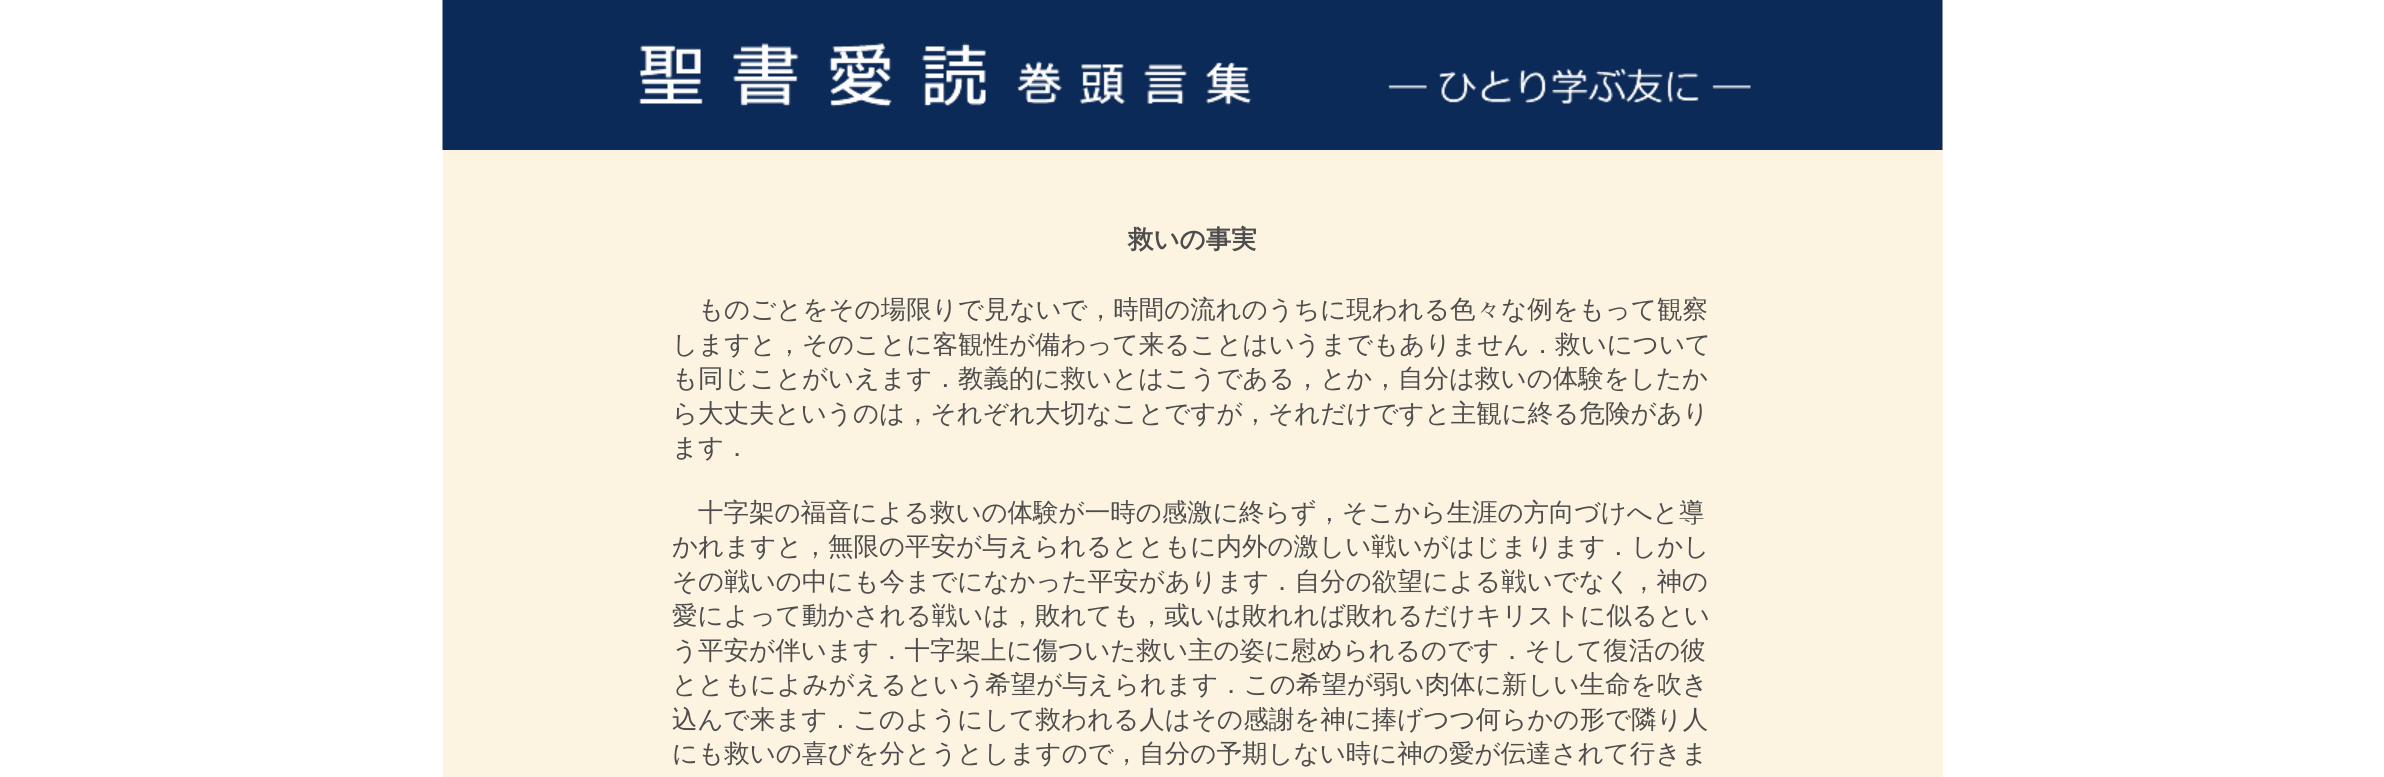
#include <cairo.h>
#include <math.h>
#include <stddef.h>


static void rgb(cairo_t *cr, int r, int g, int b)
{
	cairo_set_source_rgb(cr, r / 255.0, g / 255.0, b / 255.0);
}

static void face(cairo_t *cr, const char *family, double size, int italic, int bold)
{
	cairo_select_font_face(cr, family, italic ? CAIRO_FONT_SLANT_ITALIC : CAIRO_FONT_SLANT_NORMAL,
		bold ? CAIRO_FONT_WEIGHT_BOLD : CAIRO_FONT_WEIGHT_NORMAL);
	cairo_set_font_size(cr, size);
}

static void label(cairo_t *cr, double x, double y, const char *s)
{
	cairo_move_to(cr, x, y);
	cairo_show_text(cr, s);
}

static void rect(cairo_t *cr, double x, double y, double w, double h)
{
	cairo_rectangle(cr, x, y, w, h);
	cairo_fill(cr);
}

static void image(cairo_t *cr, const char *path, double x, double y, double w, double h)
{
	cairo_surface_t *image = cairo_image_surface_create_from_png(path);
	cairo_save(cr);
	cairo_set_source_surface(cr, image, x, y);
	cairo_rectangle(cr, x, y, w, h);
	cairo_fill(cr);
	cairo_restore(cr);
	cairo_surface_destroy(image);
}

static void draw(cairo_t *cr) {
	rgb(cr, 255, 255, 255);
	cairo_paint(cr);
	rgb(cr, 253, 243, 225);
	rect(cr, 443, 0, 1500, 777);
	image(cr, "image0.png", 442, 0, 1501, 150);
	face(cr, "WenQuanYi Zen Hei", 25.5, 0, 1);
	rgb(cr, 77, 77, 77);
	label(cr, 1128, 248, "救いの事実");
	face(cr, "WenQuanYi Zen Hei Medium", 25.5, 0, 0);
	label(cr, 698, 318, "ものごとをその場限りで見ないで，時間の流れのうちに現われる色々な例をもって観察");
	label(cr, 672, 353, "しますと，そのことに客観性が備わって来ることはいうまでもありません．救いについて");
	label(cr, 672, 387, "も同じことがいえます．教義的に救いとはこうである，とか，自分は救いの体験をしたか");
	label(cr, 672, 422, "ら大丈夫というのは，それぞれ大切なことですが，それだけですと主観に終る危険があり");
	label(cr, 672, 456, "ます．");
	label(cr, 698, 521, "十字架の福音による救いの体験が一時の感激に終らず，そこから生涯の方向づけへと導");
	label(cr, 672, 555, "かれますと，無限の平安が与えられるとともに内外の激しい戦いがはじまります．しかし");
	label(cr, 672, 590, "その戦いの中にも今までになかった平安があります．自分の欲望による戦いでなく，神の");
	label(cr, 672, 624, "愛によって動かされる戦いは，敗れても，或いは敗れれば敗れるだけキリストに似るとい");
	label(cr, 672, 659, "う平安が伴います．十字架上に傷ついた救い主の姿に慰められるのです．そして復活の彼");
	label(cr, 672, 693, "とともによみがえるという希望が与えられます．この希望が弱い肉体に新しい生命を吹き");
	label(cr, 672, 728, "込んで来ます．このようにして救われる人はその感謝を神に捧げつつ何らかの形で隣り人");
	label(cr, 672, 762, "にも救いの喜びを分とうとしますので，自分の予期しない時に神の愛が伝達されて行きま");
}

int main(void) {
	cairo_surface_t *surface = cairo_image_surface_create(CAIRO_FORMAT_RGB24, 2384, 777);
	cairo_t *cr = cairo_create(surface);
	cairo_font_options_t *options = cairo_font_options_create();
	cairo_font_options_set_hint_metrics(options, CAIRO_HINT_METRICS_OFF);
	cairo_font_options_set_hint_style(options, CAIRO_HINT_STYLE_NONE);
	cairo_set_font_options(cr, options);
	cairo_set_miter_limit(cr, 4);
	draw(cr);
	cairo_surface_write_to_png(surface, "render.png");
	cairo_font_options_destroy(options);
	cairo_destroy(cr);
	cairo_surface_destroy(surface);
	return 0;
}
